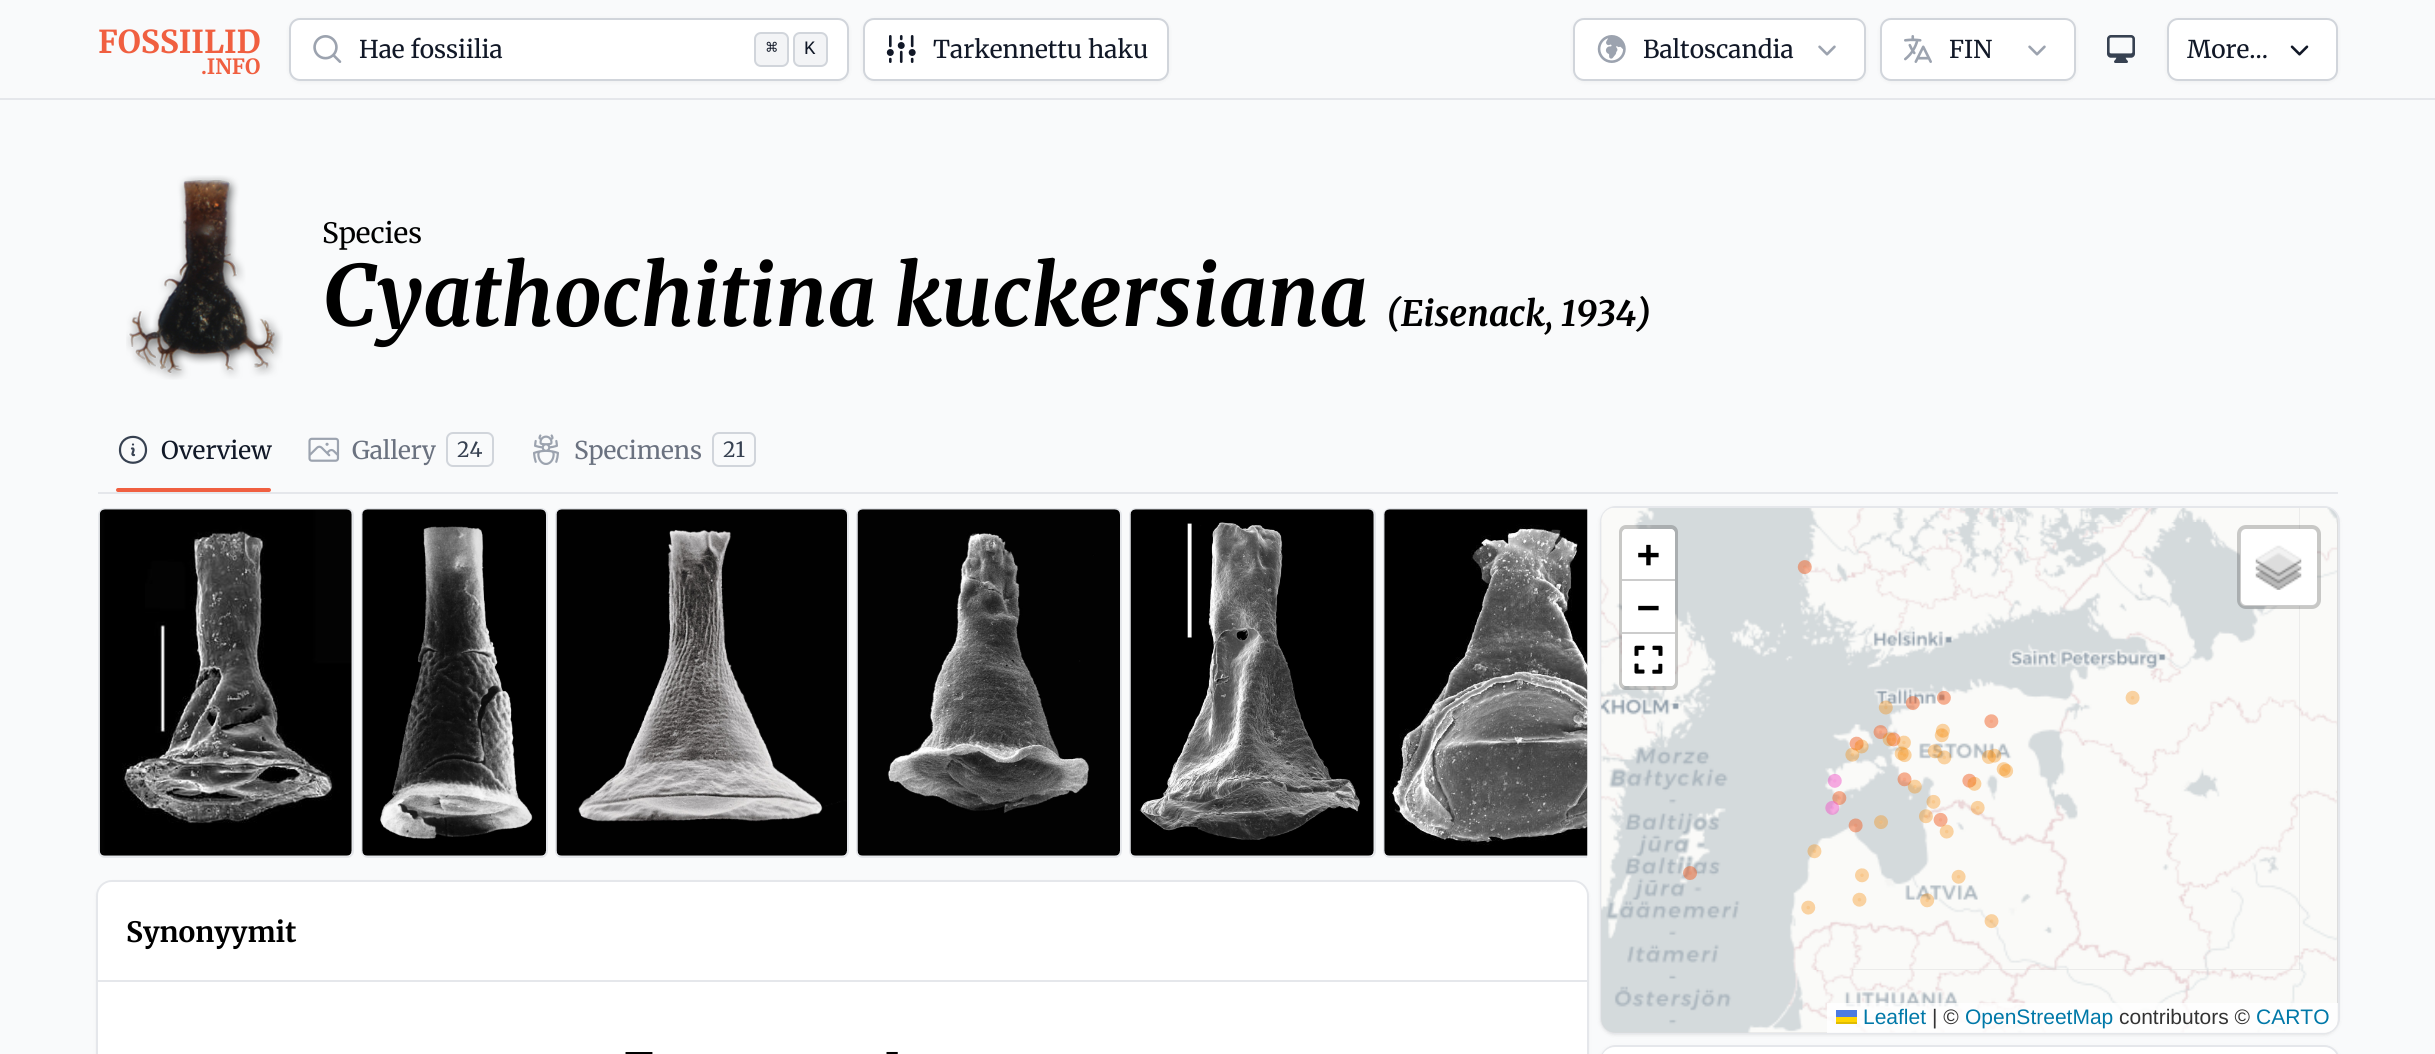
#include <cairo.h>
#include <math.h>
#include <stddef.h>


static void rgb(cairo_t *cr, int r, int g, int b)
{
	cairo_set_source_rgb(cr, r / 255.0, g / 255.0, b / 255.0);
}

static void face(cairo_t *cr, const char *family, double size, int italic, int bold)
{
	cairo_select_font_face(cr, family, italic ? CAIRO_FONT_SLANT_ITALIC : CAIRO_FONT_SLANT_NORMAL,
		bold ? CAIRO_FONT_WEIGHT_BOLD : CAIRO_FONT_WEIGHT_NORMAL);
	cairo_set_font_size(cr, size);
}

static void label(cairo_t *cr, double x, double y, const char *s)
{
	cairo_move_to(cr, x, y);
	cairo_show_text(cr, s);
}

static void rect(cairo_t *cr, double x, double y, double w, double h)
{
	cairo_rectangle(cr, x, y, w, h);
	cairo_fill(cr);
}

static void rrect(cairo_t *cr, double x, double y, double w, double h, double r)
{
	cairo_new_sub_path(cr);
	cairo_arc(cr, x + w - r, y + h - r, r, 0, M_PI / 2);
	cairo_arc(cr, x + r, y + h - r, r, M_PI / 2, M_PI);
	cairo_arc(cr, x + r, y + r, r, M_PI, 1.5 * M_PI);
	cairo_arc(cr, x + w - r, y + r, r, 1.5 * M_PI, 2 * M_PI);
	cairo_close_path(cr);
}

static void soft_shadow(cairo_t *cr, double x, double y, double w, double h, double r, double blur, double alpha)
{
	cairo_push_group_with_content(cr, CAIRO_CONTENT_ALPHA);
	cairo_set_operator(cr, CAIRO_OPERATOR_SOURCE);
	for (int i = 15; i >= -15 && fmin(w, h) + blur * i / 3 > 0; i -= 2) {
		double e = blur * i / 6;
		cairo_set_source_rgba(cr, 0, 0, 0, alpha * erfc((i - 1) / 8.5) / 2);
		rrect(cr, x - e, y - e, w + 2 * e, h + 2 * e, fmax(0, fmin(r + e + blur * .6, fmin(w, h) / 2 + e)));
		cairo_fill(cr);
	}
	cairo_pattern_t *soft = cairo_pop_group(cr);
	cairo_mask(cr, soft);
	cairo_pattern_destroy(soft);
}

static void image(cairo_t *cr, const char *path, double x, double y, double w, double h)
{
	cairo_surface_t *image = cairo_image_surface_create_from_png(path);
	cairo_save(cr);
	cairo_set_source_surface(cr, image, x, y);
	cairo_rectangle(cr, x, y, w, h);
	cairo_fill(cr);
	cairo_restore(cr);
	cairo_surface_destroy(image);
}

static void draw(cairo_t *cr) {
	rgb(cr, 249, 250, 251);
	cairo_paint(cr);
	rgb(cr, 229, 231, 235);
	rect(cr, 0, 98, 2435, 2);
	face(cr, "Merriweather", 31.5, 0, 1);
	rgb(cr, 240, 95, 64);
	label(cr, 98, 53, "FOSSIILID");
	face(cr, "Merriweather", 21, 0, 1);
	label(cr, 201, 74, ".INFO");
	rgb(cr, 0, 0, 0);
	soft_shadow(cr, 289, 19, 560, 63, 11, 2, 0.05);
	rgb(cr, 255, 255, 255);
	rrect(cr, 290, 19, 558, 61, 10);
	cairo_fill_preserve(cr);
	rgb(cr, 209, 213, 219);
	cairo_stroke(cr);
	image(cr, "image0.png", 313, 35, 29, 28);
	face(cr, "Merriweather", 24.5, 0, 0);
	rgb(cr, 17, 24, 39);
	label(cr, 359, 58, "Hae fossiilia");
	rgb(cr, 243, 244, 246);
	rrect(cr, 755, 33, 33, 33, 6);
	cairo_fill_preserve(cr);
	rgb(cr, 209, 213, 219);
	cairo_stroke(cr);
	face(cr, "DejaVu Sans Mono", 19, 0, 0);
	rgb(cr, 17, 24, 39);
	label(cr, 766, 54, "⌘");
	rgb(cr, 243, 244, 246);
	rrect(cr, 794, 33, 33, 33, 6);
	cairo_fill_preserve(cr);
	rgb(cr, 209, 213, 219);
	cairo_stroke(cr);
	face(cr, "Liberation Mono", 19, 0, 0);
	rgb(cr, 17, 24, 39);
	label(cr, 804, 54, "K");
	rgb(cr, 0, 0, 0);
	soft_shadow(cr, 863, 19, 306, 63, 11, 2, 0.05);
	rgb(cr, 255, 255, 255);
	rrect(cr, 864, 19, 304, 61, 10);
	cairo_fill_preserve(cr);
	rgb(cr, 209, 213, 219);
	cairo_stroke(cr);
	image(cr, "image1.png", 886, 35, 30, 28);
	face(cr, "Merriweather", 24.5, 0, 0);
	rgb(cr, 17, 24, 39);
	label(cr, 933, 58, "Tarkennettu haku");
	rgb(cr, 0, 0, 0);
	soft_shadow(cr, 1573, 19, 293, 63, 11, 2, 0.05);
	rgb(cr, 255, 255, 255);
	rrect(cr, 1574, 19, 291, 61, 10);
	cairo_fill_preserve(cr);
	rgb(cr, 209, 213, 219);
	cairo_stroke(cr);
	image(cr, "image2.png", 1597, 35, 29, 28);
	rgb(cr, 17, 24, 39);
	label(cr, 1643, 58, "Baltoscandia");
	image(cr, "image3.png", 1818, 45, 18, 11);
	rgb(cr, 0, 0, 0);
	soft_shadow(cr, 1880, 19, 196, 63, 11, 2, 0.05);
	rgb(cr, 255, 255, 255);
	rrect(cr, 1881, 19, 194, 61, 10);
	cairo_fill_preserve(cr);
	rgb(cr, 209, 213, 219);
	cairo_stroke(cr);
	image(cr, "image4.png", 1904, 35, 28, 28);
	rgb(cr, 17, 24, 39);
	label(cr, 1949, 58, "FIN");
	image(cr, "image3.png", 2028, 45, 18, 11);
	image(cr, "image5.png", 2107, 35, 28, 28);
	rgb(cr, 0, 0, 0);
	soft_shadow(cr, 2167, 19, 171, 63, 11, 2, 0.05);
	rgb(cr, 255, 255, 255);
	rrect(cr, 2168, 19, 169, 61, 10);
	cairo_fill_preserve(cr);
	rgb(cr, 209, 213, 219);
	cairo_stroke(cr);
	rgb(cr, 17, 24, 39);
	label(cr, 2187, 58, "More...");
	image(cr, "image6.png", 2290, 45, 19, 11);
	image(cr, "image7.png", 126, 175, 157, 205);
	face(cr, "Merriweather", 28, 0, 0);
	rgb(cr, 0, 0, 0);
	label(cr, 322, 243, "Species");
	face(cr, "Merriweather", 84, 1, 1);
	label(cr, 322, 326, "Cyathochitina kuckersiana");
	face(cr, "Merriweather", 35, 1, 1);
	label(cr, 1386, 326, "(Eisenack, 1934)");
	rgb(cr, 229, 231, 235);
	rect(cr, 98, 492, 2240, 2);
	cairo_new_path(cr);
	cairo_move_to(cr, 132, 448.5);
	cairo_line_to(cr, 133, 448.5);
	cairo_curve_to(cr, 135, 450, 131, 454, 133, 455);
	cairo_line_to(cr, 134, 455);
	cairo_move_to(cr, 146, 450);
	cairo_curve_to(cr, 146, 467, 120, 467, 120, 450);
	cairo_curve_to(cr, 120, 432.5, 146, 432.5, 146, 450);
	cairo_move_to(cr, 133, 444.5);
	cairo_line_to(cr, 133, 444.5);
	cairo_close_path(cr);
	rgb(cr, 55, 65, 81);
	cairo_set_line_width(cr, 2.2);
	cairo_set_line_cap(cr, CAIRO_LINE_CAP_ROUND);
	cairo_set_line_join(cr, CAIRO_LINE_JOIN_ROUND);
	cairo_stroke(cr);
	face(cr, "Merriweather", 24.5, 0, 0);
	rgb(cr, 17, 24, 39);
	label(cr, 161, 459, "Overview");
	rgb(cr, 240, 95, 64);
	rrect(cr, 116, 488, 155, 4, 2);
	cairo_fill(cr);
	image(cr, "image8.png", 308, 437, 32, 25);
	rgb(cr, 107, 114, 128);
	label(cr, 352, 459, "Gallery");
	rrect(cr, 447, 433, 46, 33, 6);
	rgb(cr, 209, 213, 219);
	cairo_set_line_width(cr, 2);
	cairo_set_line_cap(cr, CAIRO_LINE_CAP_BUTT);
	cairo_set_line_join(cr, CAIRO_LINE_JOIN_MITER);
	cairo_stroke(cr);
	face(cr, "Merriweather", 21, 0, 0);
	rgb(cr, 55, 65, 81);
	label(cr, 457, 457, "24");
	image(cr, "image9.png", 533, 434, 26, 31);
	face(cr, "Merriweather", 24.5, 0, 0);
	rgb(cr, 107, 114, 128);
	label(cr, 574, 459, "Specimens");
	rrect(cr, 713, 433, 42, 33, 6);
	rgb(cr, 209, 213, 219);
	cairo_stroke(cr);
	face(cr, "Merriweather", 21, 0, 0);
	rgb(cr, 55, 65, 81);
	label(cr, 723, 457, "21");
	rrect(cr, 99, 509, 254, 348, 6);
	rgb(cr, 229, 231, 235);
	cairo_stroke(cr);
	image(cr, "image10.png", 99, 509, 253, 347);
	rrect(cr, 362, 509, 185, 348, 6);
	cairo_stroke(cr);
	image(cr, "image11.png", 362, 509, 184, 347);
	rrect(cr, 556, 509, 292, 348, 6);
	cairo_stroke(cr);
	image(cr, "image12.png", 556, 509, 291, 347);
	rrect(cr, 857, 509, 264, 348, 6);
	cairo_stroke(cr);
	image(cr, "image13.png", 857, 509, 263, 347);
	rrect(cr, 1130, 509, 245, 348, 6);
	cairo_stroke(cr);
	image(cr, "image14.png", 1130, 509, 244, 347);
	rgb(cr, 0, 0, 0);
	soft_shadow(cr, 1603, 511, 733, 522, 12, 2, 0.1);
	soft_shadow(cr, 1601, 509, 737, 525, 14, 2.5, 0.1);
	rrect(cr, 1601, 507, 738, 526, 15);
	rgb(cr, 229, 231, 235);
	cairo_stroke(cr);
	cairo_save(cr);
	cairo_rectangle(cr, 98, 508, 1489, 360);
	cairo_clip(cr);
	rrect(cr, 1384, 509, 271, 348, 6);
	cairo_stroke(cr);
	cairo_restore(cr);
	image(cr, "image15.png", 1384, 509, 204, 347);
	rgb(cr, 0, 0, 0);
	soft_shadow(cr, 98, 884, 1489, 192, 14, 2.5, 0.1);
	rrect(cr, 97, 881, 1491, 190, 15);
	rgb(cr, 229, 231, 235);
	cairo_stroke(cr);
	rgb(cr, 255, 255, 255);
	rrect(cr, 98, 882, 1489, 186, 14);
	cairo_fill(cr);
	face(cr, "Merriweather", 28, 0, 1);
	rgb(cr, 0, 0, 0);
	label(cr, 126, 942, "Synonyymit");
	rgb(cr, 229, 231, 235);
	rect(cr, 98, 980, 1489, 2);
	face(cr, "Merriweather", 28, 0, 0);
	rgb(cr, 0, 0, 0);
	label(cr, 623, 1062, "—");
	label(cr, 884, 1062, "-");
	rgb(cr, 221, 221, 221);
	rrect(cr, 1601, 508, 737, 525, 14);
	cairo_fill(cr);
	image(cr, "image16.png", 1601, 508, 251, 14);
	image(cr, "image17.png", 1852, 508, 447, 14);
	image(cr, "image18.png", 2299, 508, 38, 14);
	image(cr, "image19.png", 1601, 522, 251, 448);
	image(cr, "image20.png", 1851, 522, 448, 448);
	image(cr, "image21.png", 2299, 522, 38, 448);
	image(cr, "image22.png", 1601, 970, 251, 63);
	image(cr, "image23.png", 1851, 970, 449, 63);
	image(cr, "image24.png", 2299, 970, 38, 63);
	image(cr, "image25.png", 1683, 560, 457, 369);
	rrect(cr, 1621, 527, 55, 161, 5);
	cairo_set_source_rgba(cr, 0, 0, 0, 0.2);
	cairo_set_line_width(cr, 4);
	cairo_stroke(cr);
	rgb(cr, 255, 255, 255);
	cairo_new_path(cr);
	cairo_move_to(cr, 1626, 529);
	cairo_line_to(cr, 1671, 529);
	cairo_curve_to(cr, 1673, 529, 1675, 531, 1675, 533);
	cairo_line_to(cr, 1675, 579);
	cairo_line_to(cr, 1622, 579);
	cairo_line_to(cr, 1622, 533);
	cairo_curve_to(cr, 1622, 531, 1624, 529, 1626, 529);
	cairo_close_path(cr);
	cairo_fill(cr);
	rgb(cr, 204, 204, 204);
	rect(cr, 1622, 579, 53, 2);
	face(cr, "DejaVu Sans Mono", 38, 0, 1);
	rgb(cr, 0, 0, 0);
	label(cr, 1637, 567, "+");
	rgb(cr, 255, 255, 255);
	rect(cr, 1622, 581, 53, 51);
	rgb(cr, 204, 204, 204);
	rect(cr, 1622, 632, 53, 2);
	rgb(cr, 0, 0, 0);
	label(cr, 1637, 620, "−");
	rgb(cr, 255, 255, 255);
	cairo_new_path(cr);
	cairo_move_to(cr, 1622, 634);
	cairo_line_to(cr, 1675, 634);
	cairo_line_to(cr, 1675, 682);
	cairo_curve_to(cr, 1675, 684, 1673, 686, 1671, 686);
	cairo_line_to(cr, 1626, 686);
	cairo_curve_to(cr, 1624, 686, 1622, 684, 1622, 682);
	cairo_close_path(cr);
	cairo_fill(cr);
	image(cr, "image26.png", 1634, 645, 29, 29);
	rrect(cr, 2240, 529, 77, 77, 5);
	cairo_fill(cr);
	rrect(cr, 2239, 527, 80, 80, 7);
	cairo_set_source_rgba(cr, 0, 0, 0, 0.2);
	cairo_stroke(cr);
	image(cr, "image27.png", 2255, 545, 47, 45);
	cairo_set_source_rgba(cr, 1, 1, 1, 0.8);
	cairo_new_path(cr);
	cairo_move_to(cr, 1827, 1003);
	cairo_line_to(cr, 2338, 1003);
	cairo_line_to(cr, 2338, 1019);
	cairo_curve_to(cr, 2338, 1026.5, 2331.5, 1033, 2324, 1033);
	cairo_line_to(cr, 1827, 1033);
	cairo_close_path(cr);
	cairo_fill(cr);
	face(cr, "Liberation Sans", 21, 0, 0);
	rgb(cr, 0, 120, 168);
	label(cr, 1863, 1024, "Leaflet");
	rgb(cr, 76, 123, 225);
	rect(cr, 1836, 1010, 21, 7);
	rgb(cr, 255, 213, 0);
	rect(cr, 1836, 1017, 21, 5);
	rgb(cr, 224, 188, 0);
	rect(cr, 1836, 1022, 21, 2);
	rgb(cr, 51, 51, 51);
	label(cr, 1932, 1024, "| ©");
	rgb(cr, 0, 120, 168);
	label(cr, 1965, 1024, "OpenStreetMap");
	rgb(cr, 51, 51, 51);
	label(cr, 2119, 1024, "contributors ©");
	rgb(cr, 0, 120, 168);
	label(cr, 2256, 1024, "CARTO");
	rgb(cr, 0, 0, 0);
	soft_shadow(cr, 1601, 1048, 737, 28, 14, 2.5, 0.1);
	rrect(cr, 1601, 1046, 738, 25, 15);
	rgb(cr, 229, 231, 235);
	cairo_set_line_width(cr, 2);
	cairo_stroke(cr);
	rgb(cr, 255, 255, 255);
	rrect(cr, 1601, 1047, 737, 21, 14);
	cairo_fill(cr);
}

int main(void) {
	cairo_surface_t *surface = cairo_image_surface_create(CAIRO_FORMAT_RGB24, 2435, 1054);
	cairo_t *cr = cairo_create(surface);
	cairo_font_options_t *options = cairo_font_options_create();
	cairo_font_options_set_hint_metrics(options, CAIRO_HINT_METRICS_OFF);
	cairo_font_options_set_hint_style(options, CAIRO_HINT_STYLE_NONE);
	cairo_set_font_options(cr, options);
	cairo_set_miter_limit(cr, 4);
	draw(cr);
	cairo_surface_write_to_png(surface, "render.png");
	cairo_font_options_destroy(options);
	cairo_destroy(cr);
	cairo_surface_destroy(surface);
	return 0;
}
